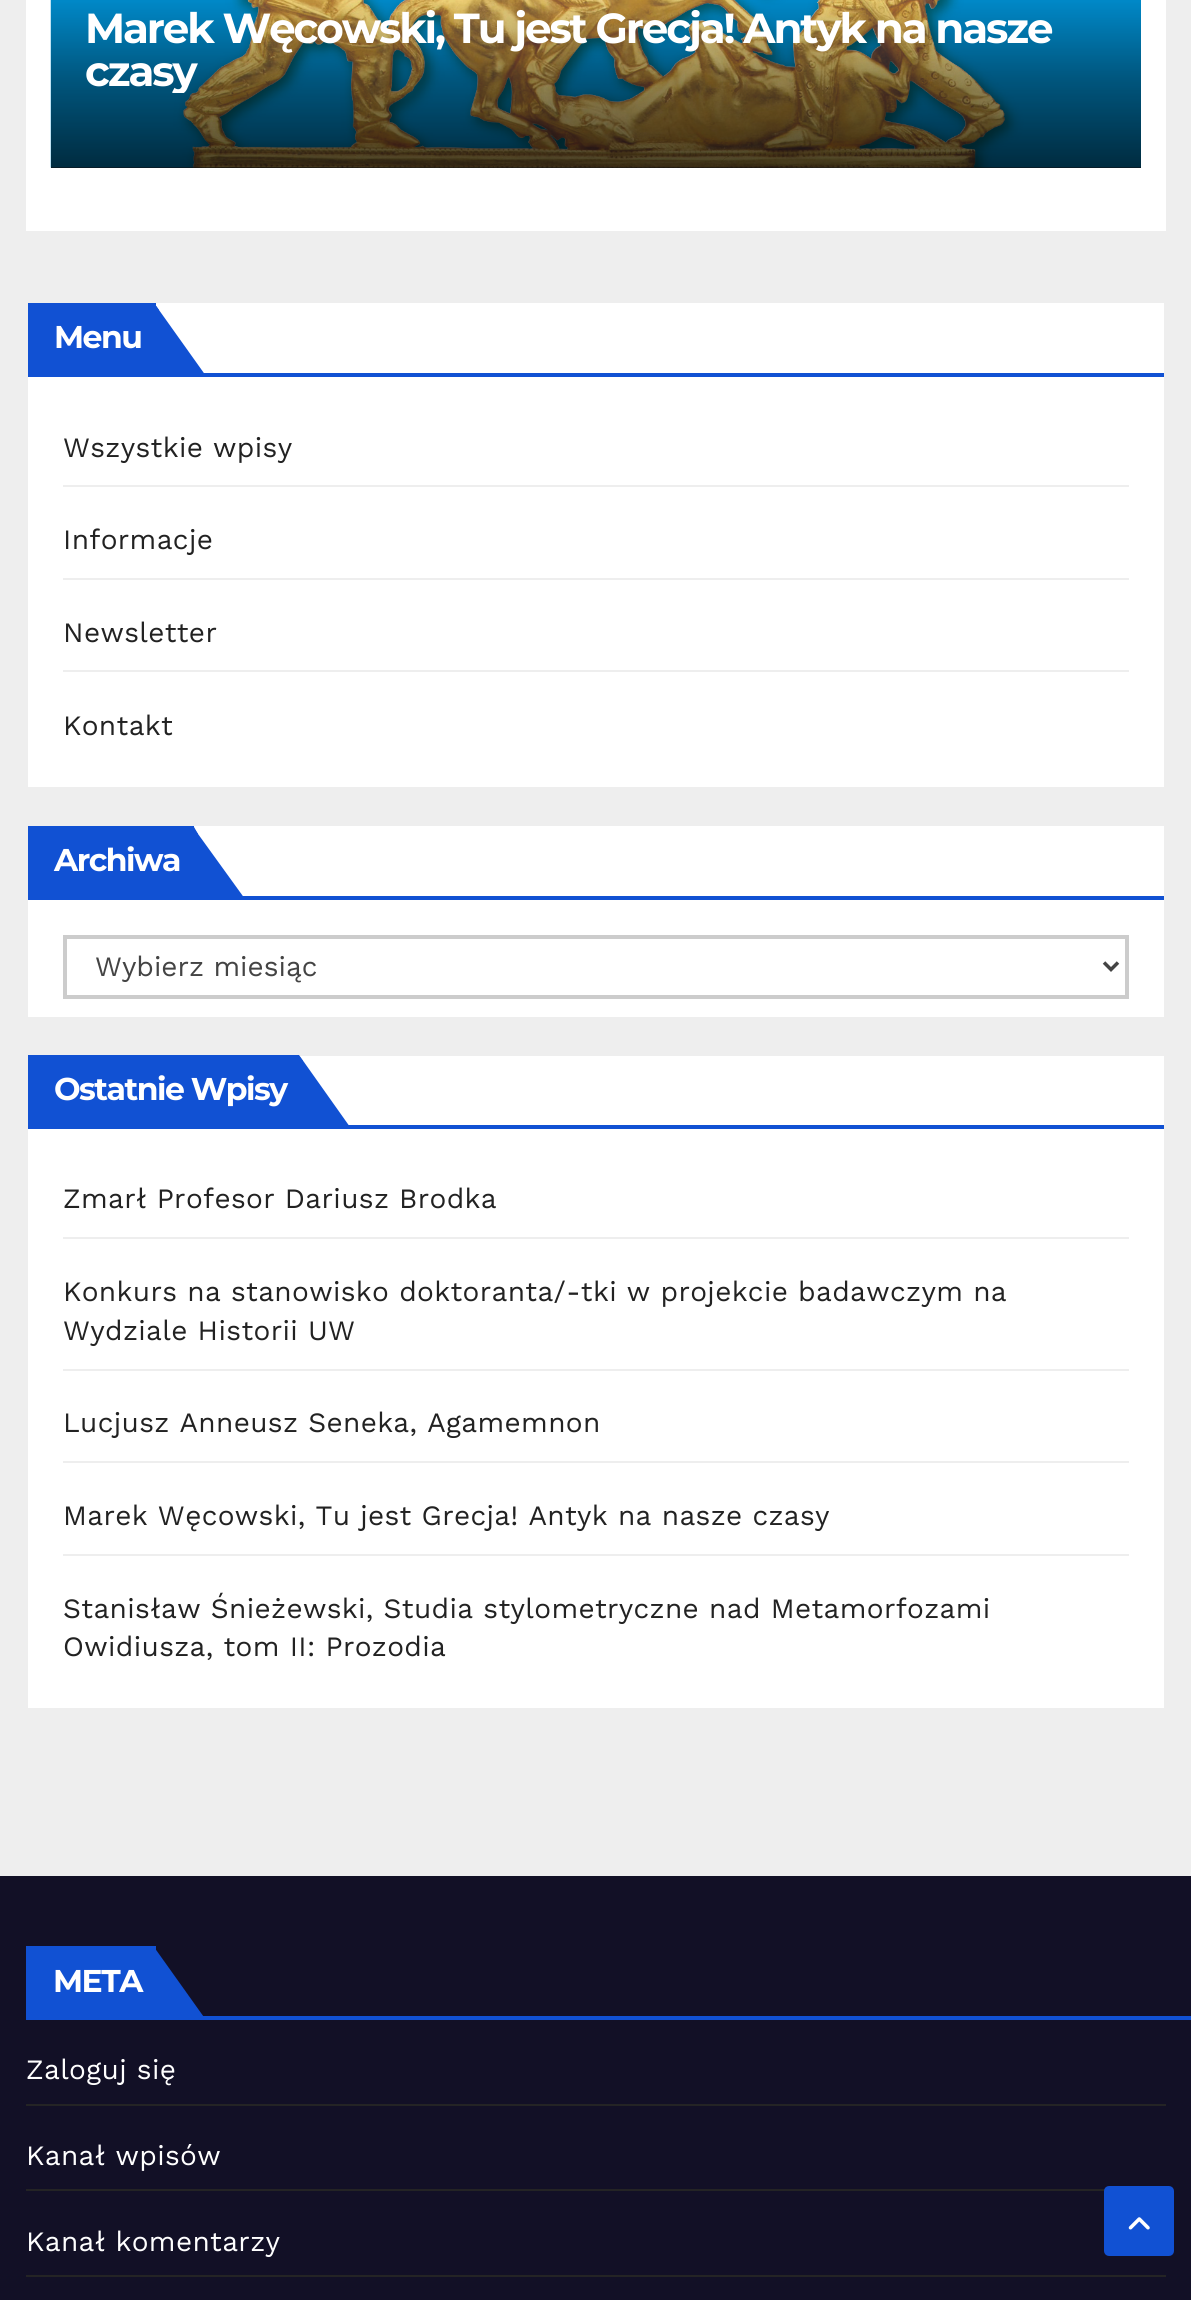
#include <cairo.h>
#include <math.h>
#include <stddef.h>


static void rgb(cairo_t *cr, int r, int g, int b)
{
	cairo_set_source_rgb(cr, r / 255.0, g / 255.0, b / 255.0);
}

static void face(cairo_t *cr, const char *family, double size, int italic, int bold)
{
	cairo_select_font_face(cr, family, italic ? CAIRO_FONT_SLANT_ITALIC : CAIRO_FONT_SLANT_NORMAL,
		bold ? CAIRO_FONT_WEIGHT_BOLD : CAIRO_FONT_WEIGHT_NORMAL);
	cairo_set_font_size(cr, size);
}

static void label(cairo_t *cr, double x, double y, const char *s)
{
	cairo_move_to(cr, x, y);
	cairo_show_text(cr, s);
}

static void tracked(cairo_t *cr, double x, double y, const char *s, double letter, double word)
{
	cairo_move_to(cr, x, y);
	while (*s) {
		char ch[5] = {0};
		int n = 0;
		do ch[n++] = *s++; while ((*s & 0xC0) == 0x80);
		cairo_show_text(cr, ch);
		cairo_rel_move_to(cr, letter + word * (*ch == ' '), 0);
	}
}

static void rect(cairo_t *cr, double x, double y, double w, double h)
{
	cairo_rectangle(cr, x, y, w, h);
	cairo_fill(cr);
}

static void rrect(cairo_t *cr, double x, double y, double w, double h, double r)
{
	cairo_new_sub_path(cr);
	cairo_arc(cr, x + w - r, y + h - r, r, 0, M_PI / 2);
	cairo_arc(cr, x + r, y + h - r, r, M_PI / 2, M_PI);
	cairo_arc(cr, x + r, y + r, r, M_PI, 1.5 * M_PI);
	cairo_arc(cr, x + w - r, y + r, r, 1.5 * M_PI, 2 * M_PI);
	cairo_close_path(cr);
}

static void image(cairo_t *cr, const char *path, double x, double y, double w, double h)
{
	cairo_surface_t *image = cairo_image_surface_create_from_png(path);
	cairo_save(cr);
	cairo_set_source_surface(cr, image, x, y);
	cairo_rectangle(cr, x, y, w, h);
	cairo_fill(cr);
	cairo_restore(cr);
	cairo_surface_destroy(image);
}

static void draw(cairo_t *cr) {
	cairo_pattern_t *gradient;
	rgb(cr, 238, 238, 238);
	cairo_paint(cr);
	rgb(cr, 255, 255, 255);
	rect(cr, 26, 0, 1140, 231);
	rgb(cr, 51, 51, 51);
	rect(cr, 51, 167, 1090, 1);
	image(cr, "image0.png", 50, 0, 1091, 168);
	gradient = cairo_pattern_create_linear(596, -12, 596, 168);
	cairo_pattern_add_color_stop_rgba(gradient, 0, 0, 0, 0, 0);
	cairo_pattern_add_color_stop_rgba(gradient, 0.5, 0, 0, 0, 0.4);
	cairo_pattern_add_color_stop_rgba(gradient, 1, 0, 0, 0, 0.7);
	cairo_set_source(cr, gradient);
	cairo_pattern_destroy(gradient);
	rect(cr, 51, 0, 1090, 168);
	face(cr, "Montserrat", 42, 0, 1);
	rgb(cr, 255, 255, 255);
	tracked(cr, 85, 43, "Marek Węcowski, Tu jest Grecja! Antyk na nasze", -2.1, 0);
	cairo_save(cr);
	cairo_rectangle(cr, 86, 5, 1020, 88);
	cairo_clip(cr);
	tracked(cr, 85, 86, "czasy", -2.1, 0);
	cairo_restore(cr);
	rect(cr, 28, 303, 1136, 484);
	rgb(cr, 17, 81, 211);
	rect(cr, 28, 373, 1136, 4);
	rect(cr, 28, 303, 128, 70);
	face(cr, "Montserrat", 31.5, 0, 1);
	rgb(cr, 255, 255, 255);
	tracked(cr, 54, 348, "Menu", -1.5, 0);
	rgb(cr, 17, 81, 211);
	cairo_new_path(cr);
	cairo_move_to(cr, 154, 303);
	cairo_line_to(cr, 154, 376);
	cairo_line_to(cr, 206, 376);
	cairo_close_path(cr);
	cairo_fill(cr);
	cairo_new_path(cr);
	cairo_move_to(cr, 154, 376);
	cairo_line_to(cr, 159, 371);
	cairo_line_to(cr, 159, 310);
	cairo_line_to(cr, 154, 303);
	cairo_close_path(cr);
	cairo_fill(cr);
	rgb(cr, 238, 238, 238);
	rect(cr, 63, 485, 1066, 2);
	face(cr, "Work Sans", 28, 0, 0);
	rgb(cr, 34, 34, 34);
	tracked(cr, 63, 457, "Wszystkie wpisy", 0.35, 0);
	rgb(cr, 238, 238, 238);
	rect(cr, 63, 578, 1066, 2);
	rgb(cr, 34, 34, 34);
	tracked(cr, 63, 549, "Informacje", 0.35, 0);
	rgb(cr, 238, 238, 238);
	rect(cr, 63, 670, 1066, 2);
	rgb(cr, 34, 34, 34);
	tracked(cr, 63, 642, "Newsletter", 0.35, 0);
	tracked(cr, 63, 735, "Kontakt", 0.35, 0);
	rgb(cr, 255, 255, 255);
	rect(cr, 28, 826, 1136, 191);
	rgb(cr, 17, 81, 211);
	rect(cr, 28, 896, 1136, 4);
	rect(cr, 28, 826, 166, 70);
	face(cr, "Montserrat", 31.5, 0, 1);
	rgb(cr, 255, 255, 255);
	tracked(cr, 54, 871, "Archiwa", -1.5, 0);
	rgb(cr, 17, 81, 211);
	cairo_new_path(cr);
	cairo_move_to(cr, 193, 827);
	cairo_line_to(cr, 193, 899);
	cairo_line_to(cr, 245, 899);
	cairo_close_path(cr);
	cairo_fill(cr);
	cairo_new_path(cr);
	cairo_move_to(cr, 194, 827);
	cairo_line_to(cr, 192, 826);
	cairo_line_to(cr, 192, 899);
	cairo_line_to(cr, 193, 899);
	cairo_line_to(cr, 198, 894);
	cairo_line_to(cr, 198, 834);
	cairo_close_path(cr);
	cairo_fill(cr);
	cairo_rectangle(cr, 65, 937, 1062, 60);
	rgb(cr, 204, 204, 204);
	cairo_set_line_width(cr, 4);
	cairo_stroke(cr);
	cairo_new_path(cr);
	cairo_move_to(cr, 1104, 962.5);
	cairo_line_to(cr, 1111, 969.5);
	cairo_line_to(cr, 1118, 962.5);
	rgb(cr, 68, 68, 68);
	cairo_set_line_width(cr, 3.5);
	cairo_stroke(cr);
	face(cr, "Work Sans", 28, 0, 0);
	label(cr, 95, 976, "Wybierz miesiąc");
	rgb(cr, 255, 255, 255);
	rect(cr, 28, 1056, 1136, 652);
	rgb(cr, 17, 81, 211);
	rect(cr, 28, 1125, 1136, 4);
	rect(cr, 28, 1055, 270, 70);
	face(cr, "Montserrat", 31.5, 0, 1);
	rgb(cr, 255, 255, 255);
	tracked(cr, 54, 1100, "Ostatnie Wpisy", -1.5, 0);
	rgb(cr, 17, 81, 211);
	cairo_new_path(cr);
	cairo_move_to(cr, 299, 1055);
	cairo_line_to(cr, 298, 1055);
	cairo_line_to(cr, 298, 1128);
	cairo_line_to(cr, 350, 1128);
	cairo_line_to(cr, 350, 1127);
	cairo_close_path(cr);
	cairo_fill(cr);
	cairo_new_path(cr);
	cairo_move_to(cr, 300, 1057);
	cairo_line_to(cr, 298, 1055);
	cairo_line_to(cr, 298, 1128);
	cairo_line_to(cr, 299, 1128);
	cairo_line_to(cr, 303, 1124);
	cairo_line_to(cr, 303, 1061);
	cairo_close_path(cr);
	cairo_fill(cr);
	rgb(cr, 238, 238, 238);
	rect(cr, 63, 1237, 1066, 2);
	face(cr, "Work Sans", 28, 0, 0);
	rgb(cr, 34, 34, 34);
	tracked(cr, 63, 1208, "Zmarł Profesor Dariusz Brodka", 0.35, 0);
	rgb(cr, 238, 238, 238);
	rect(cr, 63, 1369, 1066, 2);
	rgb(cr, 34, 34, 34);
	tracked(cr, 63, 1301, "Konkurs na stanowisko doktoranta/-tki w projekcie badawczym na", 0.35, 0);
	tracked(cr, 63, 1340, "Wydziale Historii UW", 0.35, 0);
	rgb(cr, 238, 238, 238);
	rect(cr, 63, 1461, 1066, 2);
	rgb(cr, 34, 34, 34);
	tracked(cr, 63, 1432, "Lucjusz Anneusz Seneka, Agamemnon", 0.35, 0);
	rgb(cr, 238, 238, 238);
	rect(cr, 63, 1554, 1066, 2);
	rgb(cr, 34, 34, 34);
	tracked(cr, 63, 1525, "Marek Węcowski, Tu jest Grecja! Antyk na nasze czasy", 0.35, 0);
	tracked(cr, 63, 1618, "Stanisław Śnieżewski, Studia stylometryczne nad Metamorfozami", 0.35, 0);
	tracked(cr, 63, 1656, "Owidiusza, tom II: Prozodia", 0.35, 0);
	rgb(cr, 18, 16, 38);
	rect(cr, 0, 1876, 1191, 424);
	rgb(cr, 17, 81, 211);
	rect(cr, 26, 1946, 130, 70);
	face(cr, "Montserrat", 31.5, 0, 1);
	rgb(cr, 255, 255, 255);
	tracked(cr, 53, 1992, "META", -1.5, 0);
	rgb(cr, 17, 81, 211);
	cairo_new_path(cr);
	cairo_move_to(cr, 154, 2020);
	cairo_line_to(cr, 154, 1947);
	cairo_line_to(cr, 206, 2020);
	cairo_close_path(cr);
	cairo_fill(cr);
	rect(cr, 26, 2016, 1165, 4);
	rgb(cr, 36, 36, 37);
	rect(cr, 26, 2104, 1140, 2);
	face(cr, "Work Sans", 28, 0, 0);
	rgb(cr, 255, 255, 255);
	tracked(cr, 26, 2079, "Zaloguj się", 0.35, 0);
	rgb(cr, 36, 36, 37);
	rect(cr, 26, 2189, 1079, 2);
	rgb(cr, 255, 255, 255);
	tracked(cr, 26, 2165, "Kanał wpisów", 0.35, 0);
	rgb(cr, 36, 36, 37);
	rect(cr, 26, 2275, 1140, 2);
	rgb(cr, 255, 255, 255);
	tracked(cr, 26, 2251, "Kanał komentarzy", 0.35, 0);
	rgb(cr, 17, 81, 211);
	rrect(cr, 1106, 2188, 66, 66, 3);
	cairo_fill_preserve(cr);
	cairo_set_line_width(cr, 4);
	cairo_stroke(cr);
	image(cr, "image1.png", 1128, 2217, 22, 13);
}

int main(void) {
	cairo_surface_t *surface = cairo_image_surface_create(CAIRO_FORMAT_RGB24, 1191, 2300);
	cairo_t *cr = cairo_create(surface);
	cairo_font_options_t *options = cairo_font_options_create();
	cairo_font_options_set_hint_metrics(options, CAIRO_HINT_METRICS_OFF);
	cairo_font_options_set_hint_style(options, CAIRO_HINT_STYLE_NONE);
	cairo_set_font_options(cr, options);
	cairo_set_miter_limit(cr, 4);
	draw(cr);
	cairo_surface_write_to_png(surface, "render.png");
	cairo_font_options_destroy(options);
	cairo_destroy(cr);
	cairo_surface_destroy(surface);
	return 0;
}
